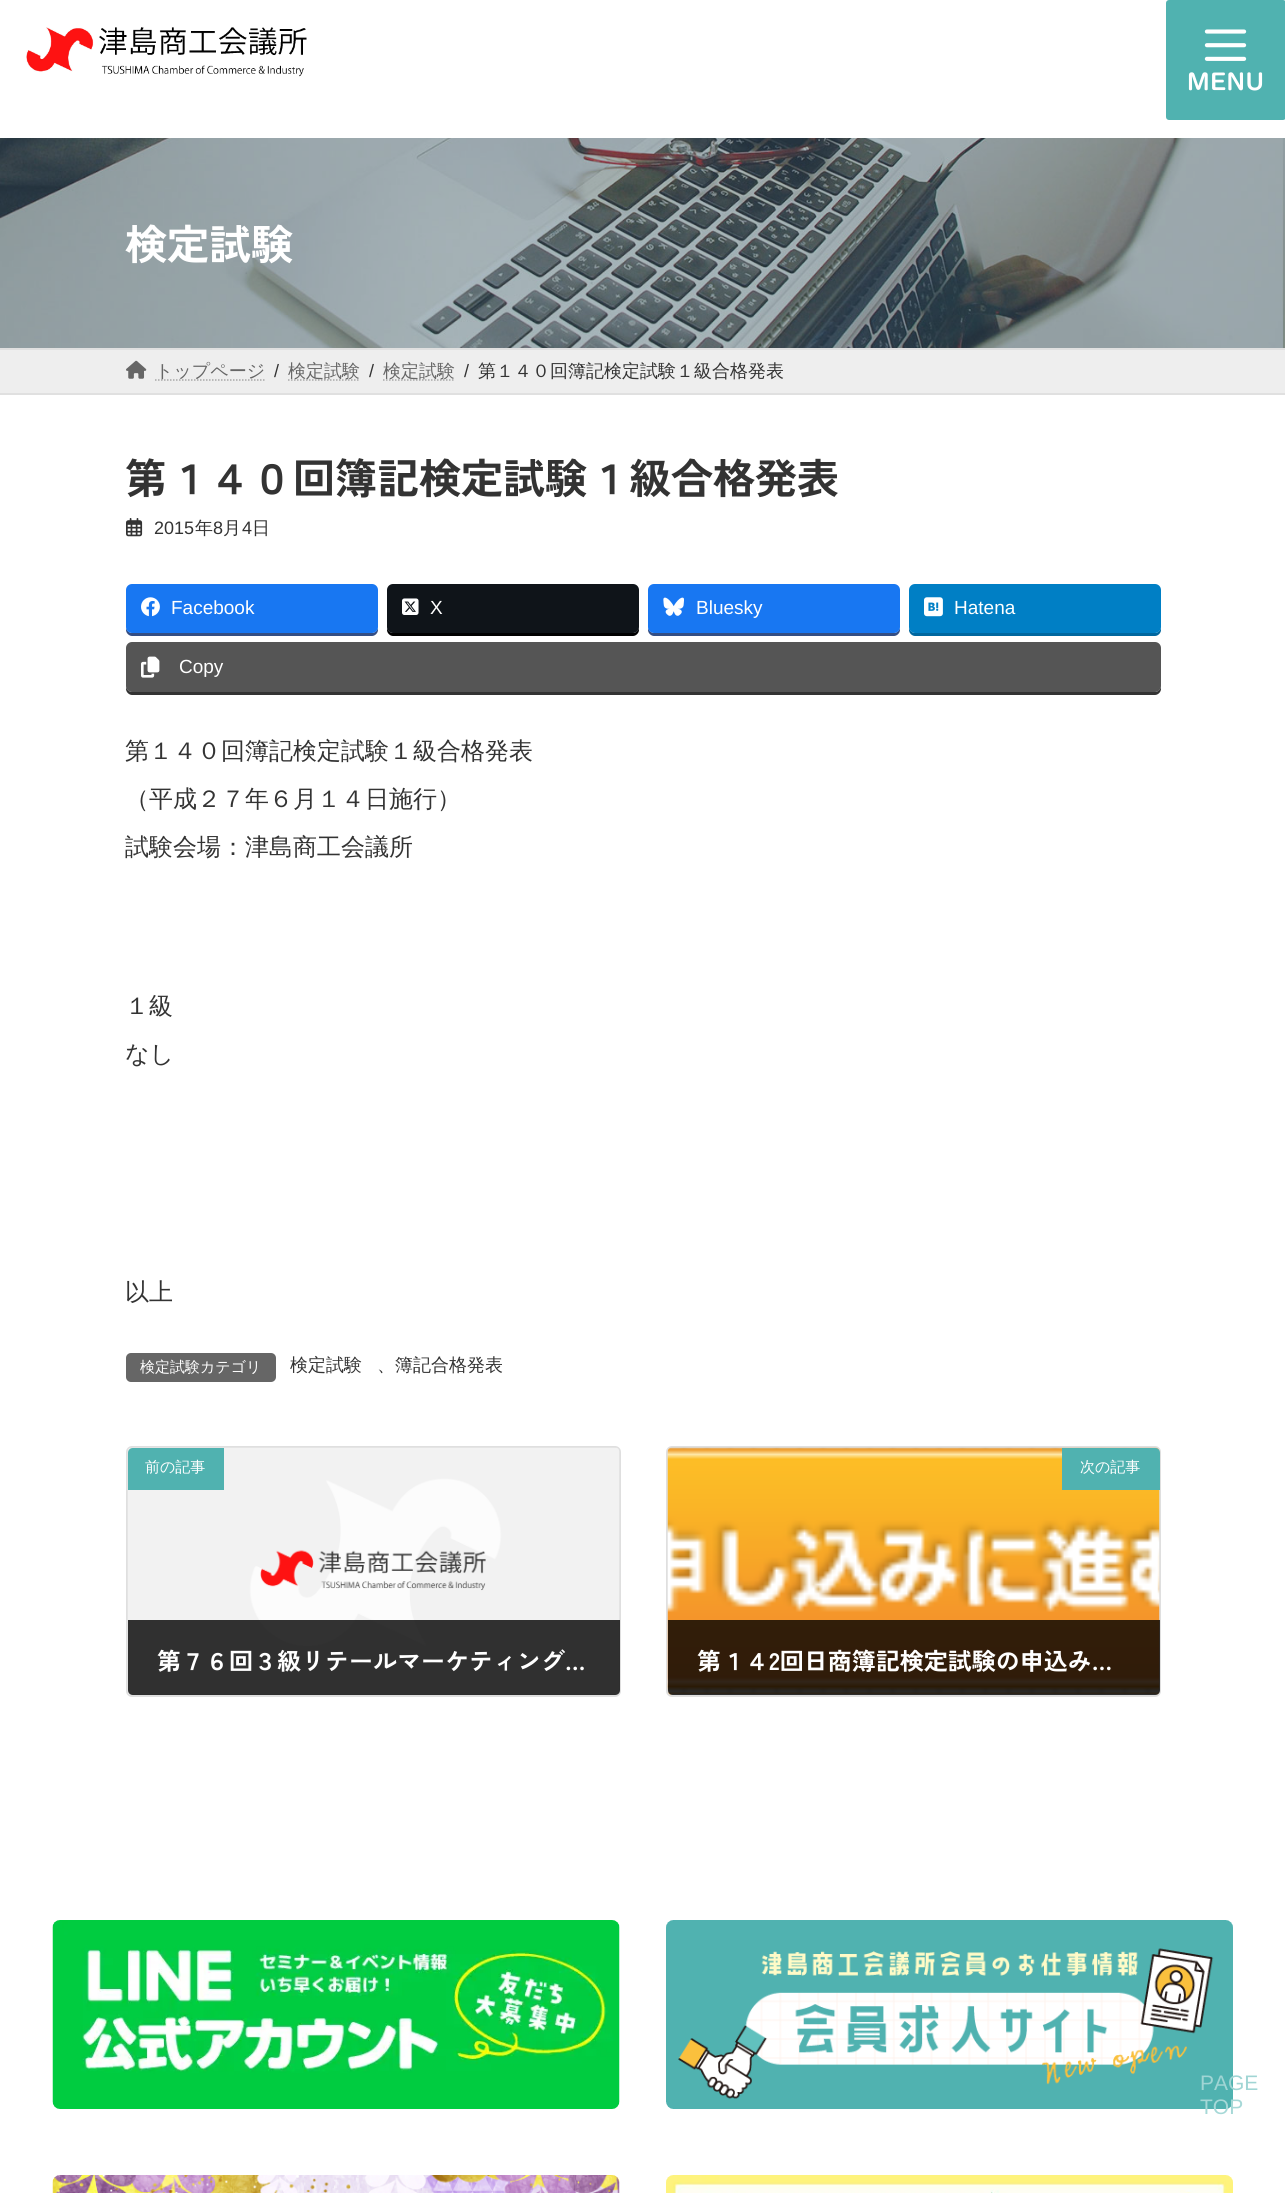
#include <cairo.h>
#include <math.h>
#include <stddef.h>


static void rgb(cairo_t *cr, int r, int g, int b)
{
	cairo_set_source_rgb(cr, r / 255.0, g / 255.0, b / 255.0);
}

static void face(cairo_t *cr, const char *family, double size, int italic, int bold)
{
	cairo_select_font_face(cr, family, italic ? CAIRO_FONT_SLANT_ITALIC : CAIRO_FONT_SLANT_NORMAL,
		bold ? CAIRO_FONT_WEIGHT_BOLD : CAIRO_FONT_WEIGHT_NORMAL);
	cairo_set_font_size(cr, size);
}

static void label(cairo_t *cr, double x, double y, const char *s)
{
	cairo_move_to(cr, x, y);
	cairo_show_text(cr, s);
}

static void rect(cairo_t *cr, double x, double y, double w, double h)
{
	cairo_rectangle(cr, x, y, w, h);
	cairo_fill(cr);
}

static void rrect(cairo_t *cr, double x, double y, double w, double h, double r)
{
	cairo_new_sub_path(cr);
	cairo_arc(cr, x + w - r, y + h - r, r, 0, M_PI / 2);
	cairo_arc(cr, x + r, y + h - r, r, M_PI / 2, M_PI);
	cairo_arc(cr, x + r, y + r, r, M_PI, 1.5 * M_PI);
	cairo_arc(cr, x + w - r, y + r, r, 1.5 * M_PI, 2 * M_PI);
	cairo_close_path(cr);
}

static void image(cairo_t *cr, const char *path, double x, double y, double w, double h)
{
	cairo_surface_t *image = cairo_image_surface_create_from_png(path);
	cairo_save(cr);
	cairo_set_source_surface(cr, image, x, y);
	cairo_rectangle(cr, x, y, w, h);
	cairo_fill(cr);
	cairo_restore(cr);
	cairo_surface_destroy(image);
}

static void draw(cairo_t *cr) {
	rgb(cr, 255, 255, 255);
	cairo_paint(cr);
	image(cr, "image0.png", 26, 27, 281, 50);
	image(cr, "image1.png", 1166, 0, 119, 120);
	image(cr, "image2.png", 0, 138, 1285, 210);
	face(cr, "Zen Kaku Gothic New", 42, 0, 1);
	rgb(cr, 255, 255, 255);
	label(cr, 125, 260, "検定試験");
	rgb(cr, 238, 238, 238);
	rect(cr, 0, 350, 1285, 43);
	rgb(cr, 224, 224, 224);
	rect(cr, 0, 348, 1285, 2);
	rect(cr, 0, 393, 1285, 2);
	image(cr, "image3.png", 126, 360, 21, 19);
	cairo_new_path(cr);
	cairo_move_to(cr, 155, 380);
	cairo_line_to(cr, 265, 380);
	rgb(cr, 167, 167, 167);
	cairo_set_line_width(cr, 1.5);
	cairo_set_dash(cr, (double[]){1.5, 1.5}, 2, 0);
	cairo_stroke(cr);
	face(cr, "WenQuanYi Zen Hei Medium", 18, 0, 0);
	rgb(cr, 102, 102, 102);
	label(cr, 155, 377, "トップページ");
	face(cr, "Liberation Sans", 18, 0, 0);
	rgb(cr, 51, 51, 51);
	label(cr, 274, 377, "/");
	cairo_new_path(cr);
	cairo_move_to(cr, 288, 380);
	cairo_line_to(cr, 360, 380);
	rgb(cr, 167, 167, 167);
	cairo_stroke(cr);
	face(cr, "WenQuanYi Zen Hei Medium", 18, 0, 0);
	rgb(cr, 102, 102, 102);
	label(cr, 288, 377, "検定試験");
	face(cr, "Liberation Sans", 18, 0, 0);
	rgb(cr, 51, 51, 51);
	label(cr, 369, 377, "/");
	cairo_new_path(cr);
	cairo_move_to(cr, 383, 380);
	cairo_line_to(cr, 455, 380);
	rgb(cr, 167, 167, 167);
	cairo_stroke(cr);
	face(cr, "WenQuanYi Zen Hei Medium", 18, 0, 0);
	rgb(cr, 102, 102, 102);
	label(cr, 383, 377, "検定試験");
	face(cr, "Liberation Sans", 18, 0, 0);
	rgb(cr, 51, 51, 51);
	label(cr, 464, 377, "/");
	face(cr, "WenQuanYi Zen Hei Medium", 18, 0, 0);
	label(cr, 478, 377, "第１４０回簿記検定試験１級合格発表");
	face(cr, "Zen Kaku Gothic New", 42, 0, 1);
	label(cr, 125, 494, "第１４０回簿記検定試験１級合格発表");
	image(cr, "image4.png", 126, 518, 17, 19);
	face(cr, "Liberation Sans", 18, 0, 0);
	label(cr, 154, 534, "2015");
	face(cr, "WenQuanYi Zen Hei Medium", 18, 0, 0);
	label(cr, 195, 534, "年");
	face(cr, "Liberation Sans", 18, 0, 0);
	label(cr, 213, 534, "8");
	face(cr, "WenQuanYi Zen Hei Medium", 18, 0, 0);
	label(cr, 223, 534, "月");
	face(cr, "Liberation Sans", 18, 0, 0);
	label(cr, 242, 534, "4");
	face(cr, "WenQuanYi Zen Hei Medium", 18, 0, 0);
	label(cr, 252, 534, "日");
	rgb(cr, 52, 78, 132);
	cairo_new_path(cr);
	cairo_move_to(cr, 126, 627);
	cairo_line_to(cr, 126, 630);
	cairo_curve_to(cr, 126, 633, 129, 636, 132, 636);
	cairo_line_to(cr, 372, 636);
	cairo_curve_to(cr, 375, 636, 378, 633, 378, 630);
	cairo_line_to(cr, 378, 627);
	cairo_curve_to(cr, 378, 630, 375, 633, 372, 633);
	cairo_line_to(cr, 132, 633);
	cairo_curve_to(cr, 129, 633, 126, 630, 126, 627);
	cairo_close_path(cr);
	cairo_fill(cr);
	rgb(cr, 24, 119, 242);
	rrect(cr, 126, 584, 252, 49, 6);
	cairo_fill(cr);
	image(cr, "image5.png", 141, 597, 19, 20);
	face(cr, "Liberation Sans", 19, 0, 0);
	rgb(cr, 255, 255, 255);
	label(cr, 171, 614, "Facebook");
	rgb(cr, 0, 0, 0);
	cairo_new_path(cr);
	cairo_move_to(cr, 387, 627);
	cairo_line_to(cr, 387, 630);
	cairo_curve_to(cr, 387, 633, 390, 636, 393, 636);
	cairo_line_to(cr, 633, 636);
	cairo_curve_to(cr, 636, 636, 639, 633, 639, 630);
	cairo_line_to(cr, 639, 627);
	cairo_curve_to(cr, 639, 630, 636, 633, 633, 633);
	cairo_line_to(cr, 393, 633);
	cairo_curve_to(cr, 390, 633, 387, 630, 387, 627);
	cairo_close_path(cr);
	cairo_fill(cr);
	rgb(cr, 15, 20, 25);
	rrect(cr, 387, 584, 252, 49, 6);
	cairo_fill(cr);
	image(cr, "image6.png", 402, 598, 17, 17);
	rgb(cr, 255, 255, 255);
	label(cr, 430, 614, "X");
	rgb(cr, 52, 78, 132);
	cairo_new_path(cr);
	cairo_move_to(cr, 648, 627);
	cairo_line_to(cr, 648, 630);
	cairo_curve_to(cr, 648, 633, 651, 636, 654, 636);
	cairo_line_to(cr, 894, 636);
	cairo_curve_to(cr, 897, 636, 900, 633, 900, 630);
	cairo_line_to(cr, 900, 627);
	cairo_curve_to(cr, 900, 630, 897, 633, 894, 633);
	cairo_line_to(cr, 654, 633);
	cairo_curve_to(cr, 651, 633, 648, 630, 648, 627);
	cairo_close_path(cr);
	cairo_fill(cr);
	rgb(cr, 24, 119, 242);
	rrect(cr, 648, 584, 252, 49, 6);
	cairo_fill(cr);
	image(cr, "image7.png", 663, 597, 21, 19);
	rgb(cr, 255, 255, 255);
	label(cr, 696, 614, "Bluesky");
	rgb(cr, 0, 103, 159);
	cairo_new_path(cr);
	cairo_move_to(cr, 909, 627);
	cairo_line_to(cr, 909, 630);
	cairo_curve_to(cr, 909, 633, 912, 636, 915, 636);
	cairo_line_to(cr, 1155, 636);
	cairo_curve_to(cr, 1158, 636, 1161, 633, 1161, 630);
	cairo_line_to(cr, 1161, 627);
	cairo_curve_to(cr, 1161, 630, 1158, 633, 1155, 633);
	cairo_line_to(cr, 915, 633);
	cairo_curve_to(cr, 912, 633, 909, 630, 909, 627);
	cairo_close_path(cr);
	cairo_fill(cr);
	rgb(cr, 0, 127, 197);
	rrect(cr, 909, 584, 252, 49, 6);
	cairo_fill(cr);
	image(cr, "image8.png", 924, 597, 19, 20);
	rgb(cr, 255, 255, 255);
	label(cr, 954, 614, "Hatena");
	rgb(cr, 51, 51, 51);
	cairo_new_path(cr);
	cairo_move_to(cr, 126, 686);
	cairo_line_to(cr, 126, 689);
	cairo_curve_to(cr, 126, 692, 129, 695, 132, 695);
	cairo_line_to(cr, 1155, 695);
	cairo_curve_to(cr, 1158, 695, 1161, 692, 1161, 689);
	cairo_line_to(cr, 1161, 686);
	cairo_curve_to(cr, 1161, 689, 1158, 692, 1155, 692);
	cairo_line_to(cr, 132, 692);
	cairo_curve_to(cr, 129, 692, 126, 689, 126, 686);
	cairo_close_path(cr);
	cairo_fill(cr);
	rgb(cr, 85, 85, 85);
	rrect(cr, 126, 642, 1035, 50, 6);
	cairo_fill(cr);
	image(cr, "image9.png", 141, 656, 19, 22);
	rgb(cr, 255, 255, 255);
	label(cr, 179, 673, "Copy");
	face(cr, "WenQuanYi Zen Hei Medium", 24, 0, 0);
	rgb(cr, 51, 51, 51);
	label(cr, 125, 759, "第１４０回簿記検定試験１級合格発表");
	label(cr, 125, 807, "（平成２７年６月１４日施行）");
	label(cr, 125, 855, "試験会場：津島商工会議所");
	label(cr, 125, 1014, "１級");
	label(cr, 125, 1062, "なし");
	label(cr, 125, 1300, "以上");
	rgb(cr, 102, 102, 102);
	rrect(cr, 126, 1353, 150, 29, 5);
	cairo_fill(cr);
	face(cr, "WenQuanYi Zen Hei Medium", 15, 0, 0);
	rgb(cr, 255, 255, 255);
	label(cr, 140, 1372, "検定試験カテゴリ");
	face(cr, "WenQuanYi Zen Hei Medium", 18, 0, 0);
	rgb(cr, 51, 51, 51);
	label(cr, 290, 1371, "検定試験");
	label(cr, 377, 1371, "、簿記合格発表");
	rrect(cr, 127, 1447, 493, 249, 5);
	rgb(cr, 223, 223, 223);
	cairo_set_line_width(cr, 2);
	cairo_set_dash(cr, NULL, 0, 0);
	cairo_stroke(cr);
	image(cr, "image10.png", 127, 1447, 493, 248);
	cairo_save(cr);
	rrect(cr, 128, 1448, 492, 247, 5);
	cairo_clip(cr);
	rgb(cr, 229, 229, 229);
	rect(cr, 128, 1694, 492, 1);
	cairo_restore(cr);
	rgb(cr, 80, 178, 176);
	cairo_new_path(cr);
	cairo_move_to(cr, 133, 1448);
	cairo_line_to(cr, 224, 1448);
	cairo_line_to(cr, 224, 1490);
	cairo_line_to(cr, 128, 1490);
	cairo_line_to(cr, 128, 1453);
	cairo_curve_to(cr, 128, 1450, 130, 1448, 133, 1448);
	cairo_close_path(cr);
	cairo_fill(cr);
	face(cr, "WenQuanYi Zen Hei Medium", 15, 0, 0);
	rgb(cr, 255, 255, 255);
	label(cr, 145, 1472, "前の記事");
	cairo_set_source_rgba(cr, 0, 0, 0, 0.8);
	cairo_new_path(cr);
	cairo_move_to(cr, 128, 1620);
	cairo_line_to(cr, 620, 1620);
	cairo_line_to(cr, 620, 1690);
	cairo_curve_to(cr, 620, 1693, 618, 1695, 615, 1695);
	cairo_line_to(cr, 133, 1695);
	cairo_curve_to(cr, 130, 1695, 128, 1693, 128, 1690);
	cairo_close_path(cr);
	cairo_fill(cr);
	face(cr, "Zen Kaku Gothic New", 24, 0, 1);
	rgb(cr, 255, 255, 255);
	label(cr, 157, 1670, "第７６回３級リテールマーケティング…");
	rrect(cr, 667, 1447, 493, 249, 5);
	rgb(cr, 223, 223, 223);
	cairo_stroke(cr);
	image(cr, "image11.png", 667, 1447, 493, 248);
	cairo_save(cr);
	rrect(cr, 668, 1448, 492, 247, 5);
	cairo_clip(cr);
	rgb(cr, 229, 229, 229);
	rect(cr, 668, 1694, 492, 1);
	cairo_restore(cr);
	rgb(cr, 80, 178, 176);
	cairo_new_path(cr);
	cairo_move_to(cr, 1062, 1448);
	cairo_line_to(cr, 1155, 1448);
	cairo_curve_to(cr, 1158, 1448, 1160, 1450, 1160, 1453);
	cairo_line_to(cr, 1160, 1490);
	cairo_line_to(cr, 1062, 1490);
	cairo_close_path(cr);
	cairo_fill(cr);
	face(cr, "WenQuanYi Zen Hei Medium", 15, 0, 0);
	rgb(cr, 255, 255, 255);
	label(cr, 1080, 1472, "次の記事");
	cairo_set_source_rgba(cr, 0, 0, 0, 0.8);
	cairo_new_path(cr);
	cairo_move_to(cr, 668, 1620);
	cairo_line_to(cr, 1160, 1620);
	cairo_line_to(cr, 1160, 1690);
	cairo_curve_to(cr, 1160, 1693, 1158, 1695, 1155, 1695);
	cairo_line_to(cr, 673, 1695);
	cairo_curve_to(cr, 670, 1695, 668, 1693, 668, 1690);
	cairo_close_path(cr);
	cairo_fill(cr);
	face(cr, "Zen Kaku Gothic New", 24, 0, 1);
	rgb(cr, 255, 255, 255);
	label(cr, 697, 1670, "第１４2回日商簿記検定試験の申込み…");
	image(cr, "image12.png", 52, 1920, 568, 189);
	image(cr, "image13.png", 666, 1920, 567, 189);
	image(cr, "image14.png", 52, 2175, 568, 18);
	image(cr, "image15.png", 666, 2175, 567, 18);
	face(cr, "Liberation Sans", 21, 0, 0);
	rgb(cr, 160, 213, 212);
	label(cr, 1200, 2090, "PAGE");
	rgb(cr, 166, 216, 215);
	label(cr, 1200, 2114, "TOP");
}

int main(void) {
	cairo_surface_t *surface = cairo_image_surface_create(CAIRO_FORMAT_RGB24, 1285, 2193);
	cairo_t *cr = cairo_create(surface);
	cairo_font_options_t *options = cairo_font_options_create();
	cairo_font_options_set_hint_metrics(options, CAIRO_HINT_METRICS_OFF);
	cairo_font_options_set_hint_style(options, CAIRO_HINT_STYLE_NONE);
	cairo_set_font_options(cr, options);
	cairo_set_miter_limit(cr, 4);
	draw(cr);
	cairo_surface_write_to_png(surface, "render.png");
	cairo_font_options_destroy(options);
	cairo_destroy(cr);
	cairo_surface_destroy(surface);
	return 0;
}
